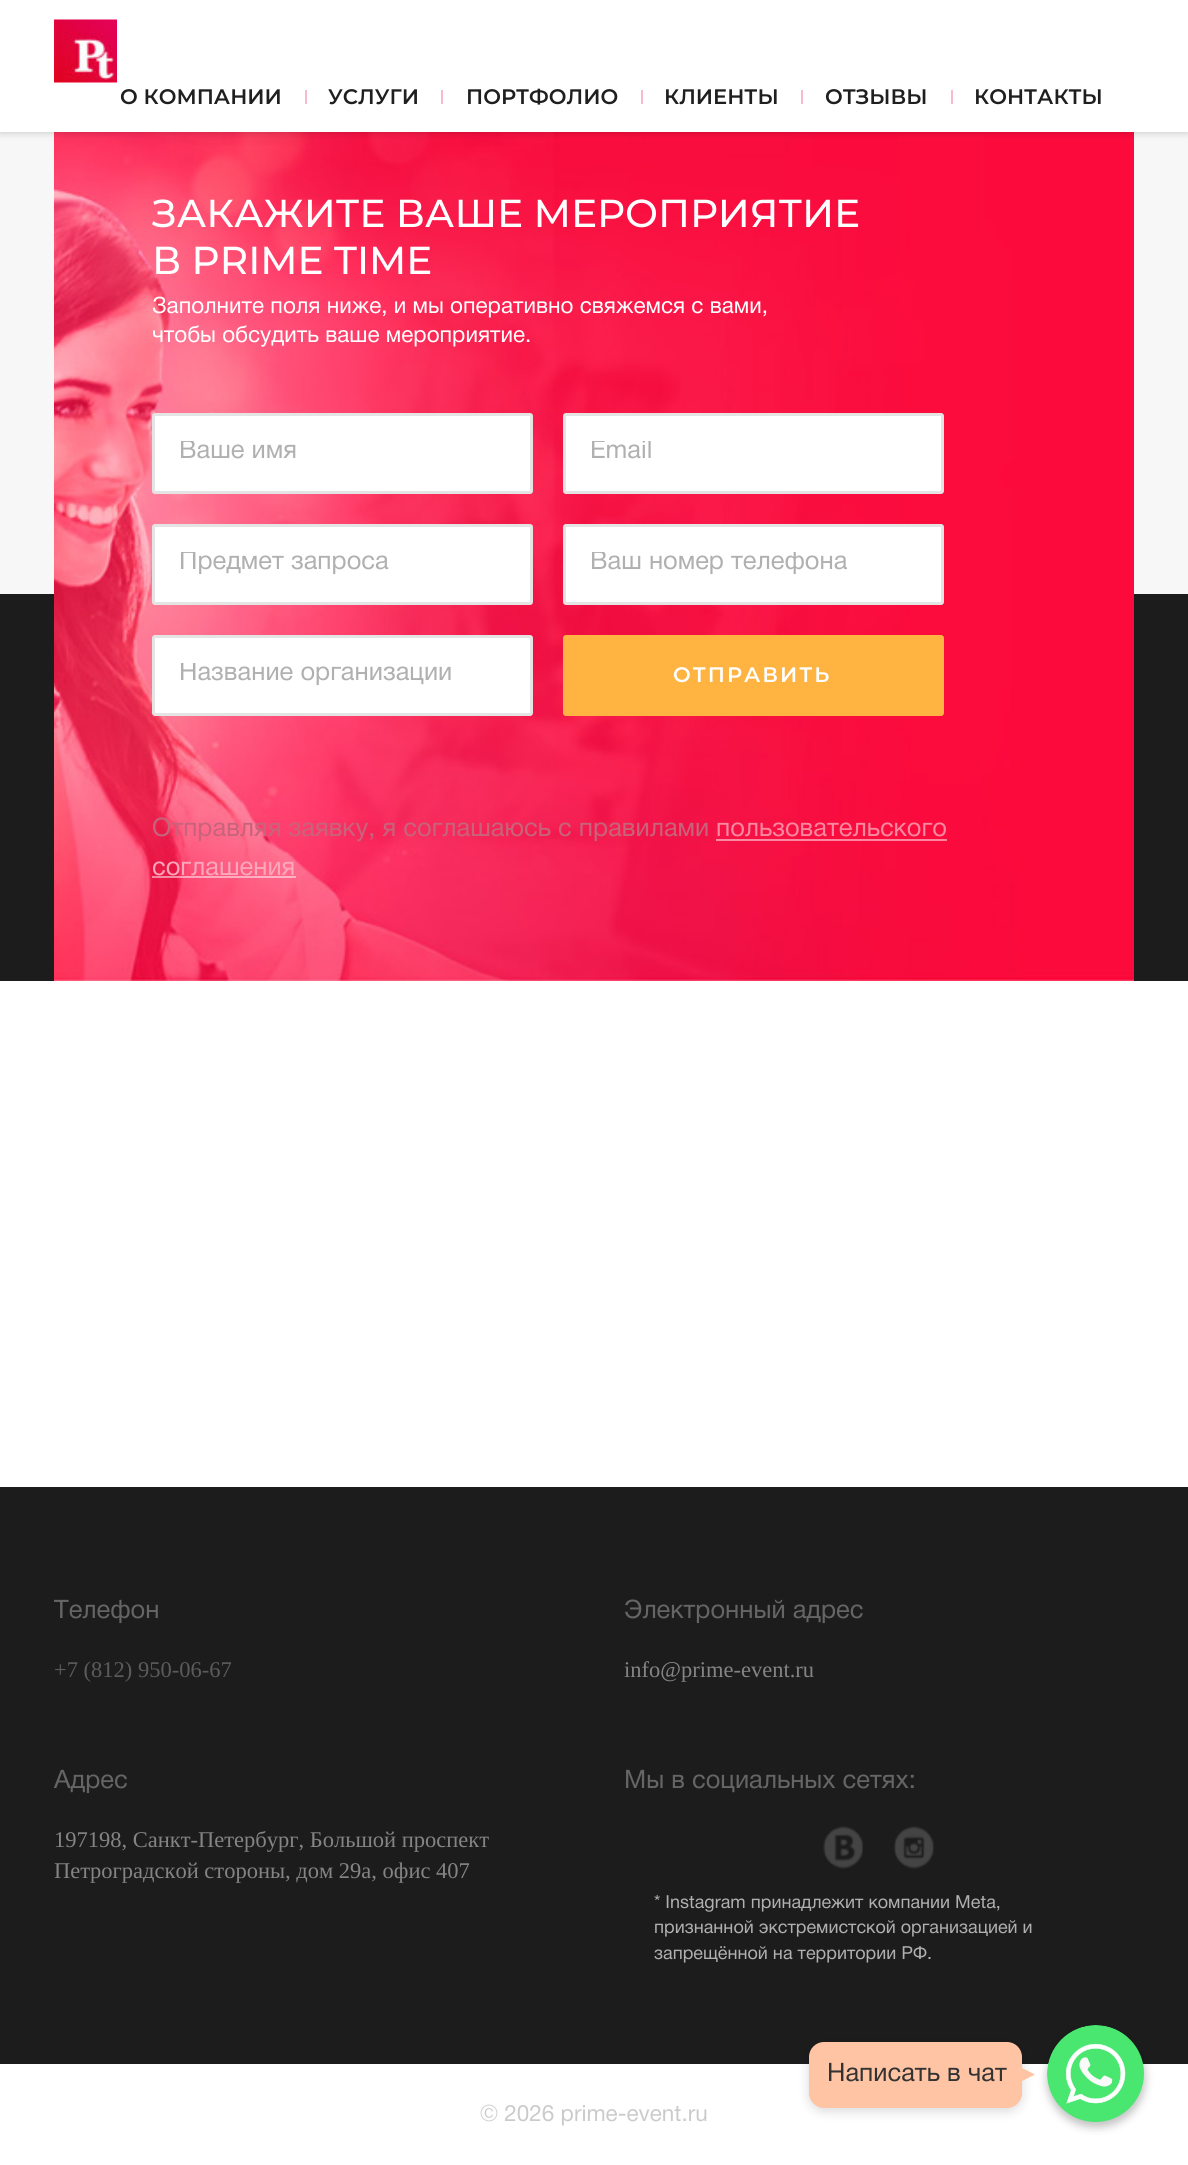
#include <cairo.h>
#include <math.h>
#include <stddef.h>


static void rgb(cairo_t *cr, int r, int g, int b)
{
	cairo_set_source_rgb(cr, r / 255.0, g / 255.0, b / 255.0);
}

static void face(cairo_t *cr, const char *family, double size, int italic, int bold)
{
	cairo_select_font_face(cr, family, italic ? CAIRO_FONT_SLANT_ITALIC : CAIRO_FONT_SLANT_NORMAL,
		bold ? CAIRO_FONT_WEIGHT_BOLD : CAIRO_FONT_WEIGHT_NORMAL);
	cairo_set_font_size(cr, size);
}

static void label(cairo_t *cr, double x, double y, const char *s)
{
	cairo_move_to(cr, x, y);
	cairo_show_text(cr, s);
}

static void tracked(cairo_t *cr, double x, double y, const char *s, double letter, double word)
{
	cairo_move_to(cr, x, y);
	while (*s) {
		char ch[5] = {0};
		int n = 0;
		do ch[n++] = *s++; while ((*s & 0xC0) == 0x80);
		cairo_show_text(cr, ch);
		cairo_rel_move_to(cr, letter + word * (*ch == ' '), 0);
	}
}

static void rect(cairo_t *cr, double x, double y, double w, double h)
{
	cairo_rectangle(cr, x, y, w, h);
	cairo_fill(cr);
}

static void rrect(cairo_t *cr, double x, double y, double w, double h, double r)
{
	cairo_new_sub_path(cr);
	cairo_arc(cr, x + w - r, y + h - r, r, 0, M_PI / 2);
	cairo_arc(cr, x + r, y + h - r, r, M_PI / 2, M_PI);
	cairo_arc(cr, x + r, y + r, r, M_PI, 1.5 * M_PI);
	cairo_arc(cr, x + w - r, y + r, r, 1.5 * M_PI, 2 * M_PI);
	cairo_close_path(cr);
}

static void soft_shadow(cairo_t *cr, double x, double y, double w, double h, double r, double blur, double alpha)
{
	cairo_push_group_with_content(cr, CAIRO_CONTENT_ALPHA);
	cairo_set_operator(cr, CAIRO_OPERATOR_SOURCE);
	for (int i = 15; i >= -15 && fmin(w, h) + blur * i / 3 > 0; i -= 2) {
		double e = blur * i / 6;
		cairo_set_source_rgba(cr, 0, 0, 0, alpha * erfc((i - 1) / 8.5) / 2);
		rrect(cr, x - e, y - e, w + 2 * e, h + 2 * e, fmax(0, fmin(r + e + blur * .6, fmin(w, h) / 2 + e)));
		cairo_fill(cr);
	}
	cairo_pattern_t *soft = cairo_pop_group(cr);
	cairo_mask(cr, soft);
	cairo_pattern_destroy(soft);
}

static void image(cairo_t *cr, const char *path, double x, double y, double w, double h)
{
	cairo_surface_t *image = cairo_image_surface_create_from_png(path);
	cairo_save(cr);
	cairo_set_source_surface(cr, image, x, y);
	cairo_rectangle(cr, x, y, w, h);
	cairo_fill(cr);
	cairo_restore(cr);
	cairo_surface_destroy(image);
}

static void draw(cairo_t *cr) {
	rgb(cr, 255, 255, 255);
	cairo_paint(cr);
	rgb(cr, 247, 247, 247);
	rect(cr, 0, 132, 1188, 462);
	rgb(cr, 28, 28, 28);
	rect(cr, 0, 594, 1188, 387);
	image(cr, "image1.png", 54, 132, 1080, 849);
	rgb(cr, 0, 0, 0);
	soft_shadow(cr, 0, 0, 1188, 132, 0, 4, 0.23);
	rgb(cr, 255, 255, 255);
	rect(cr, 0, 0, 1188, 132);
	image(cr, "image0.png", 54, 19, 63, 64);
	rgb(cr, 247, 187, 203);
	rect(cr, 305, 90, 2, 14);
	face(cr, "Montserrat SemiBold", 21, 0, 0);
	rgb(cr, 31, 31, 31);
	label(cr, 120, 104, "О КОМПАНИИ");
	rgb(cr, 247, 187, 203);
	rect(cr, 441, 90, 2, 14);
	rgb(cr, 31, 31, 31);
	label(cr, 328, 104, "УСЛУГИ");
	rgb(cr, 247, 187, 203);
	rect(cr, 641, 90, 2, 14);
	rgb(cr, 31, 31, 31);
	label(cr, 466, 104, "ПОРТФОЛИО");
	rgb(cr, 247, 187, 203);
	rect(cr, 801, 90, 2, 14);
	rgb(cr, 31, 31, 31);
	label(cr, 664, 104, "КЛИЕНТЫ");
	rgb(cr, 247, 187, 203);
	rect(cr, 951, 90, 2, 14);
	rgb(cr, 31, 31, 31);
	label(cr, 825, 104, "ОТЗЫВЫ");
	label(cr, 974, 104, "КОНТАКТЫ");
	face(cr, "Montserrat Medium", 39, 0, 0);
	rgb(cr, 255, 255, 255);
	label(cr, 152, 227, "ЗАКАЖИТЕ ВАШЕ МЕРОПРИЯТИЕ");
	label(cr, 152, 274, "В PRIME TIME");
	face(cr, "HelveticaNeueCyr", 22.5, 0, 0);
	label(cr, 152, 313, "Заполните поля ниже, и мы оперативно свяжемся с вами,");
	label(cr, 152, 342, "чтобы обсудить ваше мероприятие.");
	rrect(cr, 153.5, 414.5, 378, 78, 1.5);
	cairo_fill_preserve(cr);
	rgb(cr, 228, 228, 228);
	cairo_set_line_width(cr, 3);
	cairo_stroke(cr);
	cairo_save(cr);
	cairo_rectangle(cr, 179, 441, 325, 24);
	cairo_clip(cr);
	face(cr, "HelveticaNeueCyr", 25.5, 0, 0);
	rgb(cr, 176, 176, 176);
	label(cr, 179, 458, "Ваше имя");
	cairo_restore(cr);
	rgb(cr, 255, 255, 255);
	rrect(cr, 564.5, 414.5, 378, 78, 1.5);
	cairo_fill_preserve(cr);
	rgb(cr, 228, 228, 228);
	cairo_stroke(cr);
	cairo_save(cr);
	cairo_rectangle(cr, 590, 441, 325, 24);
	cairo_clip(cr);
	face(cr, "HelveticaNeueCyr", 25.5, 0, 0);
	rgb(cr, 176, 176, 176);
	label(cr, 590, 458, "Email");
	cairo_restore(cr);
	rgb(cr, 255, 255, 255);
	rrect(cr, 153.5, 525.5, 378, 78, 1.5);
	cairo_fill_preserve(cr);
	rgb(cr, 228, 228, 228);
	cairo_stroke(cr);
	cairo_save(cr);
	cairo_rectangle(cr, 179, 552, 325, 24);
	cairo_clip(cr);
	face(cr, "HelveticaNeueCyr", 25.5, 0, 0);
	rgb(cr, 176, 176, 176);
	label(cr, 179, 569, "Предмет запроса");
	cairo_restore(cr);
	rgb(cr, 255, 255, 255);
	rrect(cr, 564.5, 525.5, 378, 78, 1.5);
	cairo_fill_preserve(cr);
	rgb(cr, 228, 228, 228);
	cairo_stroke(cr);
	cairo_save(cr);
	cairo_rectangle(cr, 590, 552, 325, 24);
	cairo_clip(cr);
	face(cr, "HelveticaNeueCyr", 25.5, 0, 0);
	rgb(cr, 176, 176, 176);
	label(cr, 590, 569, "Ваш номер телефона");
	cairo_restore(cr);
	rgb(cr, 255, 255, 255);
	rrect(cr, 153.5, 636.5, 378, 78, 1.5);
	cairo_fill_preserve(cr);
	rgb(cr, 228, 228, 228);
	cairo_stroke(cr);
	cairo_save(cr);
	cairo_rectangle(cr, 179, 663, 325, 24);
	cairo_clip(cr);
	face(cr, "HelveticaNeueCyr", 25.5, 0, 0);
	rgb(cr, 176, 176, 176);
	label(cr, 179, 680, "Название организации");
	cairo_restore(cr);
	rgb(cr, 255, 179, 64);
	rrect(cr, 563, 635, 381, 81, 3);
	cairo_fill(cr);
	face(cr, "Montserrat SemiBold", 21, 0, 0);
	rgb(cr, 255, 255, 255);
	tracked(cr, 673, 682, "ОТПРАВИТЬ", 2, 0);
	face(cr, "HelveticaNeueCyr", 25.5, 0, 0);
	rgb(cr, 199, 99, 123);
	label(cr, 152, 836, "Отправляя заявку, я соглашаюсь с правилами");
	rgb(cr, 251, 135, 160);
	label(cr, 716, 836, "пользовательского");
	cairo_set_source_rgba(cr, 1, 1, 1, 0.5);
	rect(cr, 716, 839, 231, 2);
	rgb(cr, 252, 167, 187);
	label(cr, 152, 875, "соглашения");
	cairo_set_source_rgba(cr, 1, 1, 1, 0.5);
	rect(cr, 152, 876, 144, 2);
	rgb(cr, 28, 28, 28);
	rect(cr, 0, 1487, 1188, 577);
	rgb(cr, 101, 101, 101);
	label(cr, 54, 1618, "Телефон");
	face(cr, "Liberation Serif", 22.5, 0, 0);
	rgb(cr, 91, 91, 91);
	label(cr, 54, 1677, "+7 (812) 950-06-67");
	face(cr, "HelveticaNeueCyr", 25.5, 0, 0);
	rgb(cr, 101, 101, 101);
	label(cr, 624, 1618, "Электронный адрес");
	face(cr, "Liberation Serif", 22.5, 0, 0);
	rgb(cr, 132, 132, 132);
	label(cr, 624, 1677, "info@prime-event.ru");
	face(cr, "HelveticaNeueCyr", 25.5, 0, 0);
	rgb(cr, 101, 101, 101);
	label(cr, 54, 1788, "Адрес");
	face(cr, "Liberation Serif", 22.5, 0, 0);
	rgb(cr, 132, 132, 132);
	label(cr, 54, 1847, "197198, Санкт-Петербург, Большой проспект");
	label(cr, 54, 1878, "Петроградской стороны, дом 29а, офис 407");
	face(cr, "HelveticaNeueCyr", 25.5, 0, 0);
	rgb(cr, 101, 101, 101);
	label(cr, 624, 1788, "Мы в социальных сетях:");
	image(cr, "image2.png", 823, 1826, 40, 43);
	image(cr, "image3.png", 894, 1826, 40, 43);
	face(cr, "HelveticaNeueCyr", 18, 0, 0);
	rgb(cr, 176, 176, 176);
	label(cr, 654, 1908, "* Instagram принадлежит компании Meta,");
	label(cr, 654, 1933, "признанной экстремистской организацией и");
	label(cr, 654, 1959, "запрещённой на территории РФ.");
	face(cr, "HelveticaNeueCyr", 22.5, 0, 0);
	rgb(cr, 203, 203, 203);
	label(cr, 480, 2121, "© 2026 prime-event.ru");
	rgb(cr, 0, 0, 0);
	soft_shadow(cr, 809, 2045, 213, 66, 15, 6, 0.15);
	rgb(cr, 254, 196, 163);
	rrect(cr, 809, 2042, 213, 66, 15);
	cairo_fill(cr);
	face(cr, "HelveticaNeueCyr", 25.5, 0, 0);
	rgb(cr, 51, 51, 51);
	label(cr, 827, 2081, "Написать в чат");
	rgb(cr, 0, 0, 0);
	soft_shadow(cr, 1047, 2030, 98, 97, 48.5, 4.5, 0.25);
	rgb(cr, 254, 196, 163);
	cairo_new_path(cr);
	cairo_move_to(cr, 1020, 2082);
	cairo_line_to(cr, 1020, 2067);
	cairo_line_to(cr, 1035, 2074.5);
	cairo_close_path(cr);
	cairo_fill(cr);
	image(cr, "image4.png", 1047, 2025, 97, 97);
}

int main(void) {
	cairo_surface_t *surface = cairo_image_surface_create(CAIRO_FORMAT_RGB24, 1188, 2165);
	cairo_t *cr = cairo_create(surface);
	cairo_font_options_t *options = cairo_font_options_create();
	cairo_font_options_set_hint_metrics(options, CAIRO_HINT_METRICS_OFF);
	cairo_font_options_set_hint_style(options, CAIRO_HINT_STYLE_NONE);
	cairo_set_font_options(cr, options);
	cairo_set_miter_limit(cr, 4);
	draw(cr);
	cairo_surface_write_to_png(surface, "render.png");
	cairo_font_options_destroy(options);
	cairo_destroy(cr);
	cairo_surface_destroy(surface);
	return 0;
}
